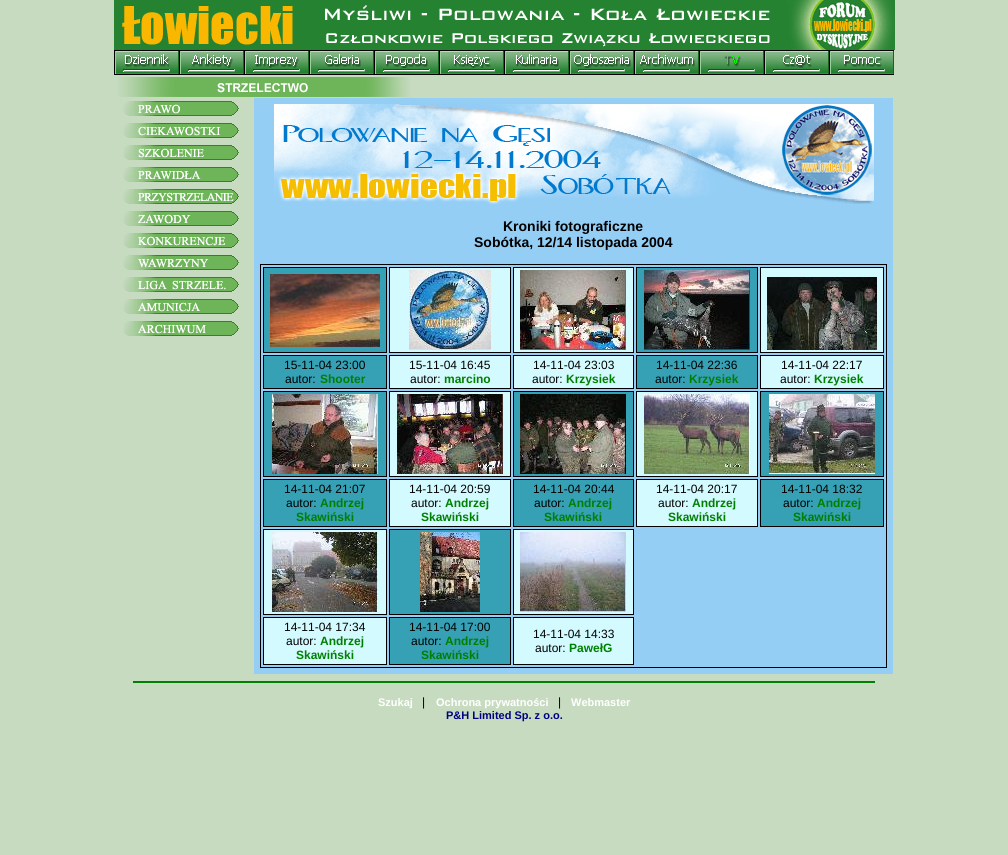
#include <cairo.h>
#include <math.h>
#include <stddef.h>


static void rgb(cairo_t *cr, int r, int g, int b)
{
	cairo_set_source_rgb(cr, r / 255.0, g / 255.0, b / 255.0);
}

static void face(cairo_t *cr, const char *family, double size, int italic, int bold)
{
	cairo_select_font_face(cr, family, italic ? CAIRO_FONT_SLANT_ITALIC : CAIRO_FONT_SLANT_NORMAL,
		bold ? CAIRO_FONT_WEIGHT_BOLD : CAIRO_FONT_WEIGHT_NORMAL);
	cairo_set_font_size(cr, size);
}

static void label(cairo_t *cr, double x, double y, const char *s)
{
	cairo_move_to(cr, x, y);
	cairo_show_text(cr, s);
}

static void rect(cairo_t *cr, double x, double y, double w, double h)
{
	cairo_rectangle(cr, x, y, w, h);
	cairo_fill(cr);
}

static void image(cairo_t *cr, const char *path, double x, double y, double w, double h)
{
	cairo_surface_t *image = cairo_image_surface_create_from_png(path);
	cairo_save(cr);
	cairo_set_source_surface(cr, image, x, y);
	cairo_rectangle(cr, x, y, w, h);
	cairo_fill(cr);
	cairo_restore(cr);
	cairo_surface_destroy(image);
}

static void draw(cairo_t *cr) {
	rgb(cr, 199, 219, 193);
	cairo_paint(cr);
	image(cr, "image0.png", 114, 0, 781, 50);
	image(cr, "image1.png", 114, 50, 65, 18);
	image(cr, "image2.png", 114, 68, 65, 7);
	image(cr, "image3.png", 179, 50, 65, 18);
	image(cr, "image2.png", 179, 68, 65, 7);
	image(cr, "image4.png", 244, 50, 65, 18);
	image(cr, "image2.png", 244, 68, 65, 7);
	image(cr, "image5.png", 309, 50, 65, 18);
	image(cr, "image2.png", 309, 68, 65, 7);
	image(cr, "image6.png", 374, 50, 65, 18);
	image(cr, "image2.png", 374, 68, 65, 7);
	image(cr, "image7.png", 439, 50, 65, 18);
	image(cr, "image2.png", 439, 68, 65, 7);
	image(cr, "image8.png", 504, 50, 65, 18);
	image(cr, "image2.png", 504, 68, 65, 7);
	image(cr, "image9.png", 569, 50, 65, 18);
	image(cr, "image2.png", 569, 68, 65, 7);
	image(cr, "image10.png", 634, 50, 65, 18);
	image(cr, "image2.png", 634, 68, 65, 7);
	image(cr, "image11.png", 699, 50, 65, 18);
	image(cr, "image2.png", 699, 68, 65, 7);
	image(cr, "image12.png", 764, 50, 65, 18);
	image(cr, "image2.png", 764, 68, 65, 7);
	image(cr, "image13.png", 829, 50, 65, 18);
	image(cr, "image2.png", 829, 68, 65, 7);
	image(cr, "image14.png", 118, 77, 60, 20);
	image(cr, "image15.png", 178, 77, 168, 20);
	image(cr, "image16.png", 346, 77, 64, 20);
	image(cr, "image17.png", 123, 101, 116, 15);
	image(cr, "image18.png", 123, 123, 116, 15);
	image(cr, "image19.png", 123, 145, 116, 15);
	image(cr, "image20.png", 123, 167, 116, 15);
	image(cr, "image21.png", 123, 189, 116, 15);
	image(cr, "image22.png", 123, 211, 116, 15);
	image(cr, "image23.png", 123, 233, 116, 15);
	image(cr, "image24.png", 123, 255, 116, 15);
	image(cr, "image25.png", 123, 277, 116, 15);
	image(cr, "image26.png", 123, 299, 116, 15);
	image(cr, "image27.png", 123, 321, 116, 15);
	rgb(cr, 148, 206, 245);
	rect(cr, 254, 98, 639, 576);
	image(cr, "image28.png", 274, 104, 600, 100);
	face(cr, "Liberation Sans", 14, 0, 1);
	rgb(cr, 0, 0, 0);
	label(cr, 503, 231, "Kroniki fotograficzne");
	label(cr, 474, 247, "Sobótka, 12/14 listopada 2004");
	cairo_rectangle(cr, 260.5, 264.5, 626, 403);
	cairo_set_line_width(cr, 1);
	cairo_stroke(cr);
	rgb(cr, 54, 160, 180);
	cairo_rectangle(cr, 263.5, 267.5, 123, 85);
	cairo_fill_preserve(cr);
	rgb(cr, 0, 0, 0);
	cairo_stroke(cr);
	image(cr, "image29.png", 270, 274, 110, 73);
	rgb(cr, 211, 250, 254);
	cairo_rectangle(cr, 389.5, 267.5, 121, 85);
	cairo_fill_preserve(cr);
	rgb(cr, 0, 0, 0);
	cairo_stroke(cr);
	image(cr, "image30.png", 409, 270, 82, 80);
	rgb(cr, 211, 250, 254);
	cairo_rectangle(cr, 513.5, 267.5, 120, 85);
	cairo_fill_preserve(cr);
	rgb(cr, 0, 0, 0);
	cairo_stroke(cr);
	image(cr, "image31.png", 520, 270, 106, 80);
	rgb(cr, 54, 160, 180);
	cairo_rectangle(cr, 636.5, 267.5, 121, 85);
	cairo_fill_preserve(cr);
	rgb(cr, 0, 0, 0);
	cairo_stroke(cr);
	image(cr, "image32.png", 644, 270, 106, 80);
	rgb(cr, 211, 250, 254);
	cairo_rectangle(cr, 760.5, 267.5, 123, 85);
	cairo_fill_preserve(cr);
	rgb(cr, 0, 0, 0);
	cairo_stroke(cr);
	image(cr, "image33.png", 767, 277, 110, 73);
	rgb(cr, 54, 160, 180);
	cairo_rectangle(cr, 263.5, 355.5, 123, 33);
	cairo_fill_preserve(cr);
	rgb(cr, 0, 0, 0);
	cairo_stroke(cr);
	face(cr, "Liberation Sans", 12, 0, 0);
	label(cr, 284, 369, "15-11-04 23:00");
	label(cr, 285, 383, "autor:");
	face(cr, "Liberation Sans", 12, 0, 1);
	rgb(cr, 0, 128, 0);
	label(cr, 320, 383, "Shooter");
	rgb(cr, 211, 250, 254);
	cairo_rectangle(cr, 389.5, 355.5, 121, 33);
	cairo_fill_preserve(cr);
	rgb(cr, 0, 0, 0);
	cairo_stroke(cr);
	face(cr, "Liberation Sans", 12, 0, 0);
	label(cr, 409, 369, "15-11-04 16:45");
	label(cr, 410, 383, "autor:");
	face(cr, "Liberation Sans", 12, 0, 1);
	rgb(cr, 0, 128, 0);
	label(cr, 444, 383, "marcino");
	rgb(cr, 211, 250, 254);
	cairo_rectangle(cr, 513.5, 355.5, 120, 33);
	cairo_fill_preserve(cr);
	rgb(cr, 0, 0, 0);
	cairo_stroke(cr);
	face(cr, "Liberation Sans", 12, 0, 0);
	label(cr, 533, 369, "14-11-04 23:03");
	label(cr, 532, 383, "autor:");
	face(cr, "Liberation Sans", 12, 0, 1);
	rgb(cr, 0, 128, 0);
	label(cr, 566, 383, "Krzysiek");
	rgb(cr, 54, 160, 180);
	cairo_rectangle(cr, 636.5, 355.5, 121, 33);
	cairo_fill_preserve(cr);
	rgb(cr, 0, 0, 0);
	cairo_stroke(cr);
	face(cr, "Liberation Sans", 12, 0, 0);
	label(cr, 656, 369, "14-11-04 22:36");
	label(cr, 655, 383, "autor:");
	face(cr, "Liberation Sans", 12, 0, 1);
	rgb(cr, 0, 128, 0);
	label(cr, 689, 383, "Krzysiek");
	rgb(cr, 211, 250, 254);
	cairo_rectangle(cr, 760.5, 355.5, 123, 33);
	cairo_fill_preserve(cr);
	rgb(cr, 0, 0, 0);
	cairo_stroke(cr);
	face(cr, "Liberation Sans", 12, 0, 0);
	label(cr, 781, 369, "14-11-04 22:17");
	label(cr, 780, 383, "autor:");
	face(cr, "Liberation Sans", 12, 0, 1);
	rgb(cr, 0, 128, 0);
	label(cr, 814, 383, "Krzysiek");
	rgb(cr, 54, 160, 180);
	cairo_rectangle(cr, 263.5, 391.5, 123, 85);
	cairo_fill_preserve(cr);
	rgb(cr, 0, 0, 0);
	cairo_stroke(cr);
	image(cr, "image34.png", 272, 394, 106, 80);
	rgb(cr, 211, 250, 254);
	cairo_rectangle(cr, 389.5, 391.5, 121, 85);
	cairo_fill_preserve(cr);
	rgb(cr, 0, 0, 0);
	cairo_stroke(cr);
	image(cr, "image35.png", 397, 394, 106, 80);
	rgb(cr, 54, 160, 180);
	cairo_rectangle(cr, 513.5, 391.5, 120, 85);
	cairo_fill_preserve(cr);
	rgb(cr, 0, 0, 0);
	cairo_stroke(cr);
	image(cr, "image36.png", 520, 394, 106, 80);
	rgb(cr, 211, 250, 254);
	cairo_rectangle(cr, 636.5, 391.5, 121, 85);
	cairo_fill_preserve(cr);
	rgb(cr, 0, 0, 0);
	cairo_stroke(cr);
	image(cr, "image37.png", 644, 394, 106, 80);
	rgb(cr, 54, 160, 180);
	cairo_rectangle(cr, 760.5, 391.5, 123, 85);
	cairo_fill_preserve(cr);
	rgb(cr, 0, 0, 0);
	cairo_stroke(cr);
	image(cr, "image38.png", 769, 394, 106, 80);
	rgb(cr, 54, 160, 180);
	cairo_rectangle(cr, 263.5, 479.5, 123, 47);
	cairo_fill_preserve(cr);
	rgb(cr, 0, 0, 0);
	cairo_stroke(cr);
	face(cr, "Liberation Sans", 12, 0, 0);
	label(cr, 284, 493, "14-11-04 21:07");
	label(cr, 286, 507, "autor:");
	face(cr, "Liberation Sans", 12, 0, 1);
	rgb(cr, 0, 128, 0);
	label(cr, 320, 507, "Andrzej");
	label(cr, 296, 521, "Skawiński");
	rgb(cr, 211, 250, 254);
	cairo_rectangle(cr, 389.5, 479.5, 121, 47);
	cairo_fill_preserve(cr);
	rgb(cr, 0, 0, 0);
	cairo_stroke(cr);
	face(cr, "Liberation Sans", 12, 0, 0);
	label(cr, 409, 493, "14-11-04 20:59");
	label(cr, 411, 507, "autor:");
	face(cr, "Liberation Sans", 12, 0, 1);
	rgb(cr, 0, 128, 0);
	label(cr, 445, 507, "Andrzej");
	label(cr, 421, 521, "Skawiński");
	rgb(cr, 54, 160, 180);
	cairo_rectangle(cr, 513.5, 479.5, 120, 47);
	cairo_fill_preserve(cr);
	rgb(cr, 0, 0, 0);
	cairo_stroke(cr);
	face(cr, "Liberation Sans", 12, 0, 0);
	label(cr, 533, 493, "14-11-04 20:44");
	label(cr, 534, 507, "autor:");
	face(cr, "Liberation Sans", 12, 0, 1);
	rgb(cr, 0, 128, 0);
	label(cr, 568, 507, "Andrzej");
	label(cr, 544, 521, "Skawiński");
	rgb(cr, 211, 250, 254);
	cairo_rectangle(cr, 636.5, 479.5, 121, 47);
	cairo_fill_preserve(cr);
	rgb(cr, 0, 0, 0);
	cairo_stroke(cr);
	face(cr, "Liberation Sans", 12, 0, 0);
	label(cr, 656, 493, "14-11-04 20:17");
	label(cr, 658, 507, "autor:");
	face(cr, "Liberation Sans", 12, 0, 1);
	rgb(cr, 0, 128, 0);
	label(cr, 692, 507, "Andrzej");
	label(cr, 668, 521, "Skawiński");
	rgb(cr, 54, 160, 180);
	cairo_rectangle(cr, 760.5, 479.5, 123, 47);
	cairo_fill_preserve(cr);
	rgb(cr, 0, 0, 0);
	cairo_stroke(cr);
	face(cr, "Liberation Sans", 12, 0, 0);
	label(cr, 781, 493, "14-11-04 18:32");
	label(cr, 783, 507, "autor:");
	face(cr, "Liberation Sans", 12, 0, 1);
	rgb(cr, 0, 128, 0);
	label(cr, 817, 507, "Andrzej");
	label(cr, 793, 521, "Skawiński");
	rgb(cr, 211, 250, 254);
	cairo_rectangle(cr, 263.5, 529.5, 123, 85);
	cairo_fill_preserve(cr);
	rgb(cr, 0, 0, 0);
	cairo_stroke(cr);
	image(cr, "image39.png", 272, 532, 106, 80);
	rgb(cr, 54, 160, 180);
	cairo_rectangle(cr, 389.5, 529.5, 121, 85);
	cairo_fill_preserve(cr);
	rgb(cr, 0, 0, 0);
	cairo_stroke(cr);
	image(cr, "image40.png", 420, 532, 60, 80);
	rgb(cr, 211, 250, 254);
	cairo_rectangle(cr, 513.5, 529.5, 120, 85);
	cairo_fill_preserve(cr);
	rgb(cr, 0, 0, 0);
	cairo_stroke(cr);
	image(cr, "image41.png", 520, 532, 106, 80);
	rgb(cr, 211, 250, 254);
	cairo_rectangle(cr, 263.5, 617.5, 123, 47);
	cairo_fill_preserve(cr);
	rgb(cr, 0, 0, 0);
	cairo_stroke(cr);
	face(cr, "Liberation Sans", 12, 0, 0);
	label(cr, 284, 631, "14-11-04 17:34");
	label(cr, 286, 645, "autor:");
	face(cr, "Liberation Sans", 12, 0, 1);
	rgb(cr, 0, 128, 0);
	label(cr, 320, 645, "Andrzej");
	label(cr, 296, 659, "Skawiński");
	rgb(cr, 54, 160, 180);
	cairo_rectangle(cr, 389.5, 617.5, 121, 47);
	cairo_fill_preserve(cr);
	rgb(cr, 0, 0, 0);
	cairo_stroke(cr);
	face(cr, "Liberation Sans", 12, 0, 0);
	label(cr, 409, 631, "14-11-04 17:00");
	label(cr, 411, 645, "autor:");
	face(cr, "Liberation Sans", 12, 0, 1);
	rgb(cr, 0, 128, 0);
	label(cr, 445, 645, "Andrzej");
	label(cr, 421, 659, "Skawiński");
	rgb(cr, 211, 250, 254);
	cairo_rectangle(cr, 513.5, 617.5, 120, 47);
	cairo_fill_preserve(cr);
	rgb(cr, 0, 0, 0);
	cairo_stroke(cr);
	face(cr, "Liberation Sans", 12, 0, 0);
	label(cr, 533, 638, "14-11-04 14:33");
	label(cr, 535, 652, "autor:");
	face(cr, "Liberation Sans", 12, 0, 1);
	rgb(cr, 0, 128, 0);
	label(cr, 569, 652, "PawełG");
	rect(cr, 133, 681, 742, 2);
	face(cr, "Liberation Sans", 11, 0, 1);
	rgb(cr, 255, 255, 255);
	label(cr, 378, 706, "Szukaj");
	face(cr, "Liberation Sans", 12, 0, 0);
	rgb(cr, 0, 0, 0);
	label(cr, 422, 706, "|");
	face(cr, "Liberation Sans", 11, 0, 1);
	rgb(cr, 255, 255, 255);
	label(cr, 436, 706, "Ochrona prywatności");
	face(cr, "Liberation Sans", 12, 0, 0);
	rgb(cr, 0, 0, 0);
	label(cr, 558, 706, "|");
	face(cr, "Liberation Sans", 11, 0, 1);
	rgb(cr, 255, 255, 255);
	label(cr, 571, 706, "Webmaster");
	rgb(cr, 0, 0, 128);
	label(cr, 446, 719, "P&H Limited Sp. z o.o.");
}

int main(void) {
	cairo_surface_t *surface = cairo_image_surface_create(CAIRO_FORMAT_RGB24, 1008, 855);
	cairo_t *cr = cairo_create(surface);
	cairo_font_options_t *options = cairo_font_options_create();
	cairo_font_options_set_hint_metrics(options, CAIRO_HINT_METRICS_OFF);
	cairo_font_options_set_hint_style(options, CAIRO_HINT_STYLE_NONE);
	cairo_set_font_options(cr, options);
	cairo_set_miter_limit(cr, 4);
	draw(cr);
	cairo_surface_write_to_png(surface, "render.png");
	cairo_font_options_destroy(options);
	cairo_destroy(cr);
	cairo_surface_destroy(surface);
	return 0;
}
